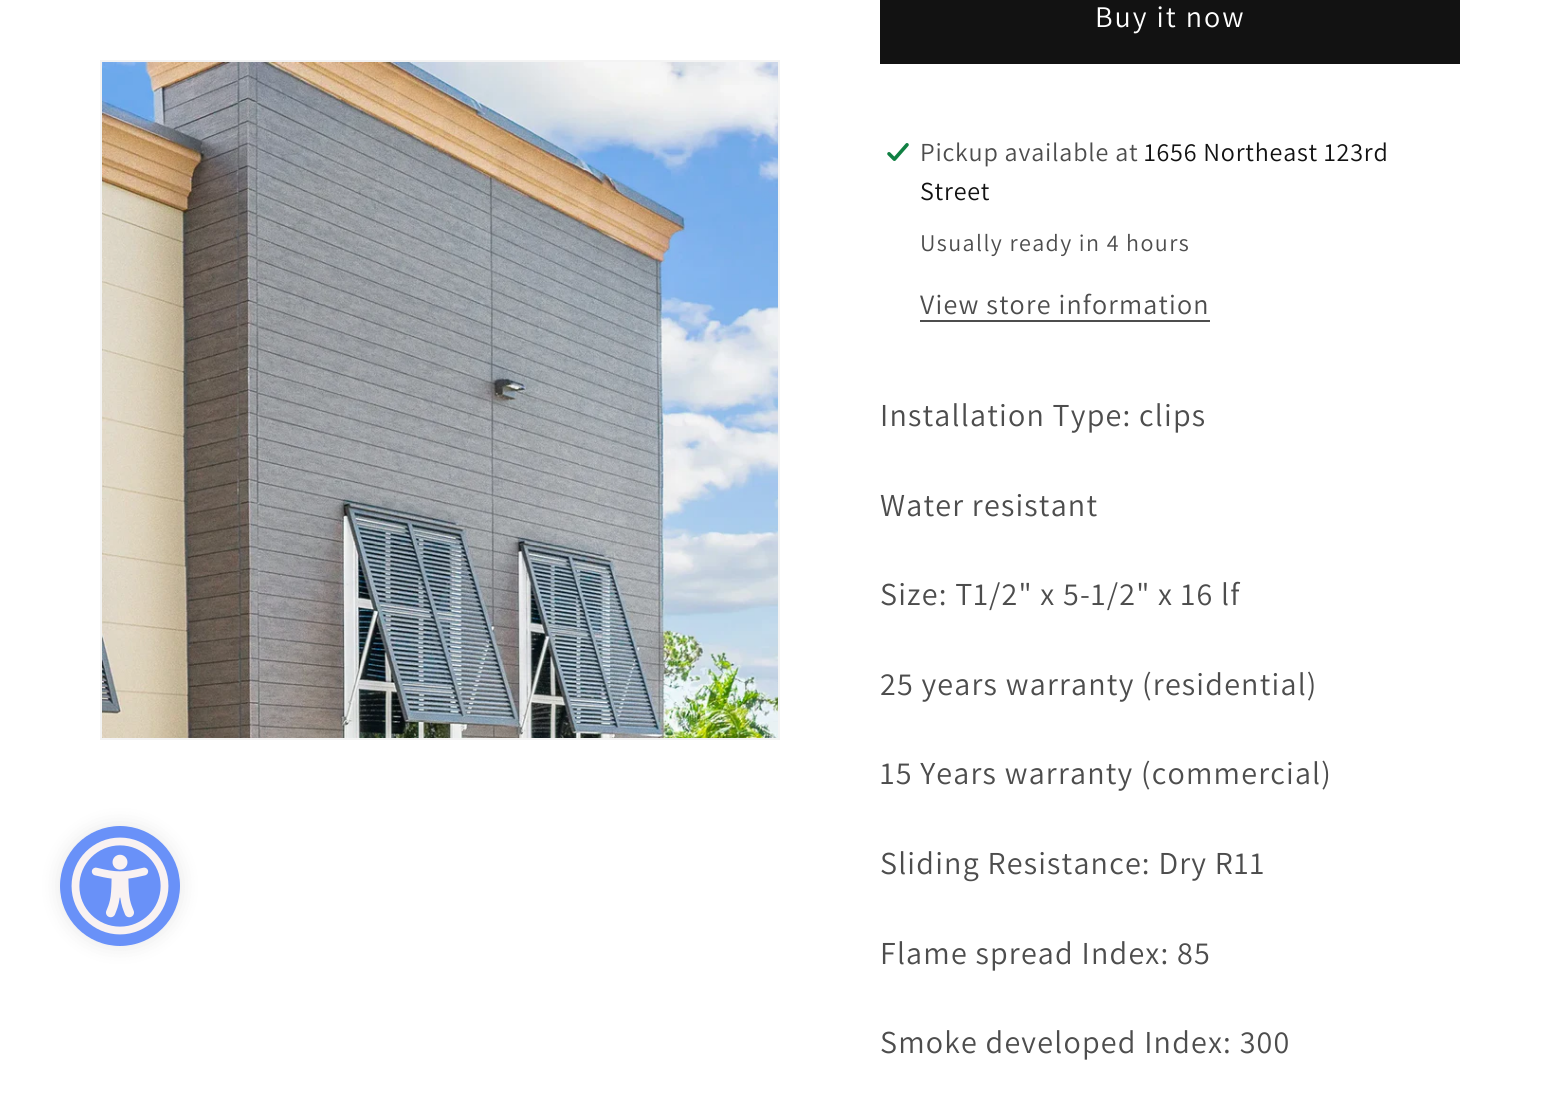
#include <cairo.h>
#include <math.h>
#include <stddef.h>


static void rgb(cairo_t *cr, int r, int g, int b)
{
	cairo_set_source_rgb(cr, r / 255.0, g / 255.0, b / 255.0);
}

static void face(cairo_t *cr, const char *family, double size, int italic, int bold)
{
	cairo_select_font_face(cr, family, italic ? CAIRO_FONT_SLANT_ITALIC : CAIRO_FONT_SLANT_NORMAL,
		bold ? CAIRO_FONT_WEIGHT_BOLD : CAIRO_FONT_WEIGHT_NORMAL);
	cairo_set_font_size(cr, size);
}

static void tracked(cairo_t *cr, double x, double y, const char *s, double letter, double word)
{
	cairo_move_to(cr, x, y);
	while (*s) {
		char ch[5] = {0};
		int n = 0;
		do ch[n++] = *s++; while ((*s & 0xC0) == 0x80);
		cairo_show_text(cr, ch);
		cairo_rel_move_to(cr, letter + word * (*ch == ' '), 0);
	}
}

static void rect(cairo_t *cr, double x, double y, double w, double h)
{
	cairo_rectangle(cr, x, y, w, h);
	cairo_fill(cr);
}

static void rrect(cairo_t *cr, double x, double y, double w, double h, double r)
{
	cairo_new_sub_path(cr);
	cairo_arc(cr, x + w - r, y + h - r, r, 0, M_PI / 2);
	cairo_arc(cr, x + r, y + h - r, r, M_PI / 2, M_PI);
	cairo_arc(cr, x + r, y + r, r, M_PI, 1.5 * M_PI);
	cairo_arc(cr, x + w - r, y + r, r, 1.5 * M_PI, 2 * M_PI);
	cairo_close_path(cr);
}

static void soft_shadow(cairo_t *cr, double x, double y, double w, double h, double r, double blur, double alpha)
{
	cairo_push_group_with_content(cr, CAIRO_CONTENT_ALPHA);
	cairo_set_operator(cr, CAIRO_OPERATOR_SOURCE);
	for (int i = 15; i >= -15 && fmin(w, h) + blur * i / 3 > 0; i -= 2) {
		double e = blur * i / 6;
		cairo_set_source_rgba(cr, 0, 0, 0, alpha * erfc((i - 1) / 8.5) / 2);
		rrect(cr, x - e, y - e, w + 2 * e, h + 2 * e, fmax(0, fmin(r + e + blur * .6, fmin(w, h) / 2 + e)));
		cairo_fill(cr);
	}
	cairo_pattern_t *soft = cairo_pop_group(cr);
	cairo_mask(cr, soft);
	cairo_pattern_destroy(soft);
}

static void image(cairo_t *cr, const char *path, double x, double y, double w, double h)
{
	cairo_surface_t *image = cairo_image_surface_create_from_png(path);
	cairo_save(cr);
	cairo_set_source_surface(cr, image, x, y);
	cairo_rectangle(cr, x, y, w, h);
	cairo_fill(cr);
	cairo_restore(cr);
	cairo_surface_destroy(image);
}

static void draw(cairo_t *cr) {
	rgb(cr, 255, 255, 255);
	cairo_paint(cr);
	cairo_save(cr);
	cairo_set_fill_rule(cr, CAIRO_FILL_RULE_EVEN_ODD);
	cairo_new_path(cr);
	cairo_move_to(cr, 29, 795);
	cairo_line_to(cr, 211, 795);
	cairo_line_to(cr, 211, 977);
	cairo_line_to(cr, 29, 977);
	cairo_close_path(cr);
	cairo_move_to(cr, 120, 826);
	cairo_curve_to(cr, 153, 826, 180, 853, 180, 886);
	cairo_curve_to(cr, 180, 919, 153, 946, 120, 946);
	cairo_curve_to(cr, 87, 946, 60, 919, 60, 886);
	cairo_curve_to(cr, 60, 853, 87, 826, 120, 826);
	cairo_close_path(cr);
	cairo_clip(cr);
	rgb(cr, 0, 0, 0);
	soft_shadow(cr, 60, 826, 120, 120, 60, 10, 0.1);
	cairo_restore(cr);
	cairo_set_source_rgba(cr, 0.024, 0.286, 0.953, 0.6);
	cairo_arc(cr, 120, 886, 60, 0, 2 * M_PI);
	cairo_fill(cr);
	image(cr, "image0.png", 71, 837, 98, 98);
	cairo_rectangle(cr, 101, 61, 678, 678);
	rgb(cr, 243, 243, 243);
	cairo_stroke(cr);
	image(cr, "image1.png", 102, 62, 676, 676);
	rgb(cr, 18, 18, 18);
	rect(cr, 880, 0, 580, 64);
	face(cr, "Assistant", 30, 0, 0);
	rgb(cr, 255, 255, 255);
	tracked(cr, 1095, 27, "Buy it now", 2, 0);
	image(cr, "image2.png", 887, 143, 22, 18);
	face(cr, "Assistant", 26, 0, 0);
	rgb(cr, 77, 77, 77);
	tracked(cr, 920, 161, "Pickup available at", 0.8, 0);
	rgb(cr, 18, 18, 18);
	tracked(cr, 1144, 161, "1656 Northeast 123rd", 0.8, 0);
	tracked(cr, 920, 200, "Street", 0.8, 0);
	face(cr, "Assistant", 24, 0, 0);
	rgb(cr, 77, 77, 77);
	tracked(cr, 920, 251, "Usually ready in 4 hours", 1.4, 0);
	face(cr, "Assistant", 28, 0, 0);
	tracked(cr, 920, 314, "View store information", 1.2, 0);
	rect(cr, 920, 320, 290, 2);
	face(cr, "Assistant", 32, 0, 0);
	tracked(cr, 880, 426, "Installation Type: clips", 1.2, 0);
	tracked(cr, 880, 516, "Water resistant", 1.2, 0);
	tracked(cr, 880, 605, "Size: T1/2\" x 5-1/2\" x 16 lf", 1.2, 0);
	tracked(cr, 880, 695, "25 years warranty (residential)", 1.2, 0);
	tracked(cr, 880, 784, "15 Years warranty (commercial)", 1.2, 0);
	tracked(cr, 880, 874, "Sliding Resistance: Dry R11", 1.2, 0);
	tracked(cr, 880, 964, "Flame spread Index: 85", 1.2, 0);
	tracked(cr, 880, 1053, "Smoke developed Index: 300", 1.2, 0);
}

int main(void) {
	cairo_surface_t *surface = cairo_image_surface_create(CAIRO_FORMAT_RGB24, 1559, 1105);
	cairo_t *cr = cairo_create(surface);
	cairo_font_options_t *options = cairo_font_options_create();
	cairo_font_options_set_hint_metrics(options, CAIRO_HINT_METRICS_OFF);
	cairo_font_options_set_hint_style(options, CAIRO_HINT_STYLE_NONE);
	cairo_set_font_options(cr, options);
	cairo_set_miter_limit(cr, 4);
	draw(cr);
	cairo_surface_write_to_png(surface, "render.png");
	cairo_font_options_destroy(options);
	cairo_destroy(cr);
	cairo_surface_destroy(surface);
	return 0;
}
